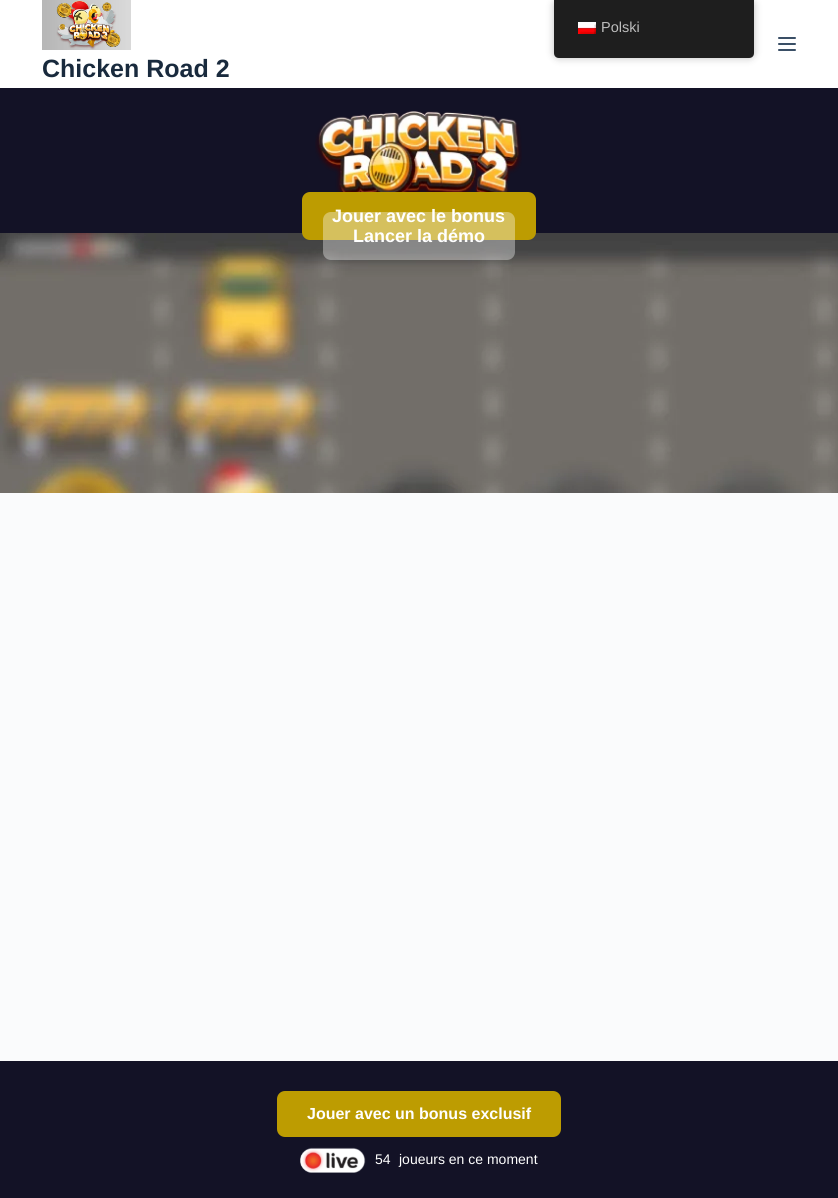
#include <cairo.h>
#include <math.h>
#include <stddef.h>


static void rgb(cairo_t *cr, int r, int g, int b)
{
	cairo_set_source_rgb(cr, r / 255.0, g / 255.0, b / 255.0);
}

static void face(cairo_t *cr, const char *family, double size, int italic, int bold)
{
	cairo_select_font_face(cr, family, italic ? CAIRO_FONT_SLANT_ITALIC : CAIRO_FONT_SLANT_NORMAL,
		bold ? CAIRO_FONT_WEIGHT_BOLD : CAIRO_FONT_WEIGHT_NORMAL);
	cairo_set_font_size(cr, size);
}

static void label(cairo_t *cr, double x, double y, const char *s)
{
	cairo_move_to(cr, x, y);
	cairo_show_text(cr, s);
}

static void rect(cairo_t *cr, double x, double y, double w, double h)
{
	cairo_rectangle(cr, x, y, w, h);
	cairo_fill(cr);
}

static void rrect(cairo_t *cr, double x, double y, double w, double h, double r)
{
	cairo_new_sub_path(cr);
	cairo_arc(cr, x + w - r, y + h - r, r, 0, M_PI / 2);
	cairo_arc(cr, x + r, y + h - r, r, M_PI / 2, M_PI);
	cairo_arc(cr, x + r, y + r, r, M_PI, 1.5 * M_PI);
	cairo_arc(cr, x + w - r, y + r, r, 1.5 * M_PI, 2 * M_PI);
	cairo_close_path(cr);
}

static void soft_shadow(cairo_t *cr, double x, double y, double w, double h, double r, double blur, double alpha)
{
	cairo_push_group_with_content(cr, CAIRO_CONTENT_ALPHA);
	cairo_set_operator(cr, CAIRO_OPERATOR_SOURCE);
	for (int i = 15; i >= -15 && fmin(w, h) + blur * i / 3 > 0; i -= 2) {
		double e = blur * i / 6;
		cairo_set_source_rgba(cr, 0, 0, 0, alpha * erfc((i - 1) / 8.5) / 2);
		rrect(cr, x - e, y - e, w + 2 * e, h + 2 * e, fmax(0, fmin(r + e + blur * .6, fmin(w, h) / 2 + e)));
		cairo_fill(cr);
	}
	cairo_pattern_t *soft = cairo_pop_group(cr);
	cairo_mask(cr, soft);
	cairo_pattern_destroy(soft);
}

static void image(cairo_t *cr, const char *path, double x, double y, double w, double h)
{
	cairo_surface_t *image = cairo_image_surface_create_from_png(path);
	cairo_save(cr);
	cairo_set_source_surface(cr, image, x, y);
	cairo_rectangle(cr, x, y, w, h);
	cairo_fill(cr);
	cairo_restore(cr);
	cairo_surface_destroy(image);
}

static void draw(cairo_t *cr) {
	rgb(cr, 250, 251, 252);
	cairo_paint(cr);
	rgb(cr, 255, 255, 255);
	rect(cr, 0, 0, 838, 88);
	rgb(cr, 0, 0, 0);
	soft_shadow(cr, 554, 0, 200, 58, 5, 4, 0.25);
	rgb(cr, 30, 30, 30);
	cairo_new_path(cr);
	cairo_move_to(cr, 554, 0);
	cairo_line_to(cr, 754, 0);
	cairo_line_to(cr, 754, 53);
	cairo_curve_to(cr, 754, 56, 752, 58, 749, 58);
	cairo_line_to(cr, 559, 58);
	cairo_curve_to(cr, 556, 58, 554, 56, 554, 53);
	cairo_close_path(cr);
	cairo_fill(cr);
	image(cr, "image0.png", 578, 22, 18, 12);
	face(cr, "Liberation Sans", 14.5, 0, 0);
	rgb(cr, 189, 189, 189);
	label(cr, 601, 32, "Polski");
	rgb(cr, 58, 79, 102);
	rrect(cr, 778, 37, 18, 2, 1);
	cairo_fill(cr);
	rrect(cr, 778, 43, 18, 2, 1);
	cairo_fill(cr);
	rrect(cr, 778, 49, 18, 2, 1);
	cairo_fill(cr);
	image(cr, "image1.png", 42, 0, 89, 50);
	face(cr, "Liberation Sans", 25, 0, 1);
	rgb(cr, 25, 42, 61);
	label(cr, 42, 77, "Chicken Road 2");
	rgb(cr, 19, 18, 38);
	rect(cr, 0, 88, 838, 145);
	image(cr, "image2.png", 315, 111, 207, 81);
	image(cr, "image3.png", 0, 233, 838, 260);
	rgb(cr, 189, 156, 1);
	rrect(cr, 302, 192, 234, 48, 8);
	cairo_fill(cr);
	face(cr, "Liberation Sans", 18, 0, 1);
	rgb(cr, 255, 255, 255);
	label(cr, 332, 222, "Jouer avec le bonus");
	cairo_set_source_rgba(cr, 1, 1, 1, 0.36);
	rrect(cr, 323, 212, 192, 48, 8);
	cairo_fill(cr);
	rgb(cr, 255, 255, 255);
	label(cr, 353, 242, "Lancer la démo");
	rgb(cr, 19, 18, 38);
	rect(cr, 0, 1061, 838, 137);
	rgb(cr, 189, 156, 1);
	rrect(cr, 277, 1091, 284, 46, 8);
	cairo_fill(cr);
	face(cr, "Liberation Sans", 16, 0, 1);
	rgb(cr, 255, 255, 255);
	label(cr, 307, 1119, "Jouer avec un bonus exclusif");
	image(cr, "image4.png", 300, 1147, 66, 26);
	face(cr, "Liberation Sans", 14, 0, 0);
	label(cr, 375, 1164, "54");
	label(cr, 399, 1164, "joueurs en ce moment");
}

int main(void) {
	cairo_surface_t *surface = cairo_image_surface_create(CAIRO_FORMAT_RGB24, 838, 1198);
	cairo_t *cr = cairo_create(surface);
	cairo_font_options_t *options = cairo_font_options_create();
	cairo_font_options_set_hint_metrics(options, CAIRO_HINT_METRICS_OFF);
	cairo_font_options_set_hint_style(options, CAIRO_HINT_STYLE_NONE);
	cairo_set_font_options(cr, options);
	cairo_set_miter_limit(cr, 4);
	draw(cr);
	cairo_surface_write_to_png(surface, "render.png");
	cairo_font_options_destroy(options);
	cairo_destroy(cr);
	cairo_surface_destroy(surface);
	return 0;
}
